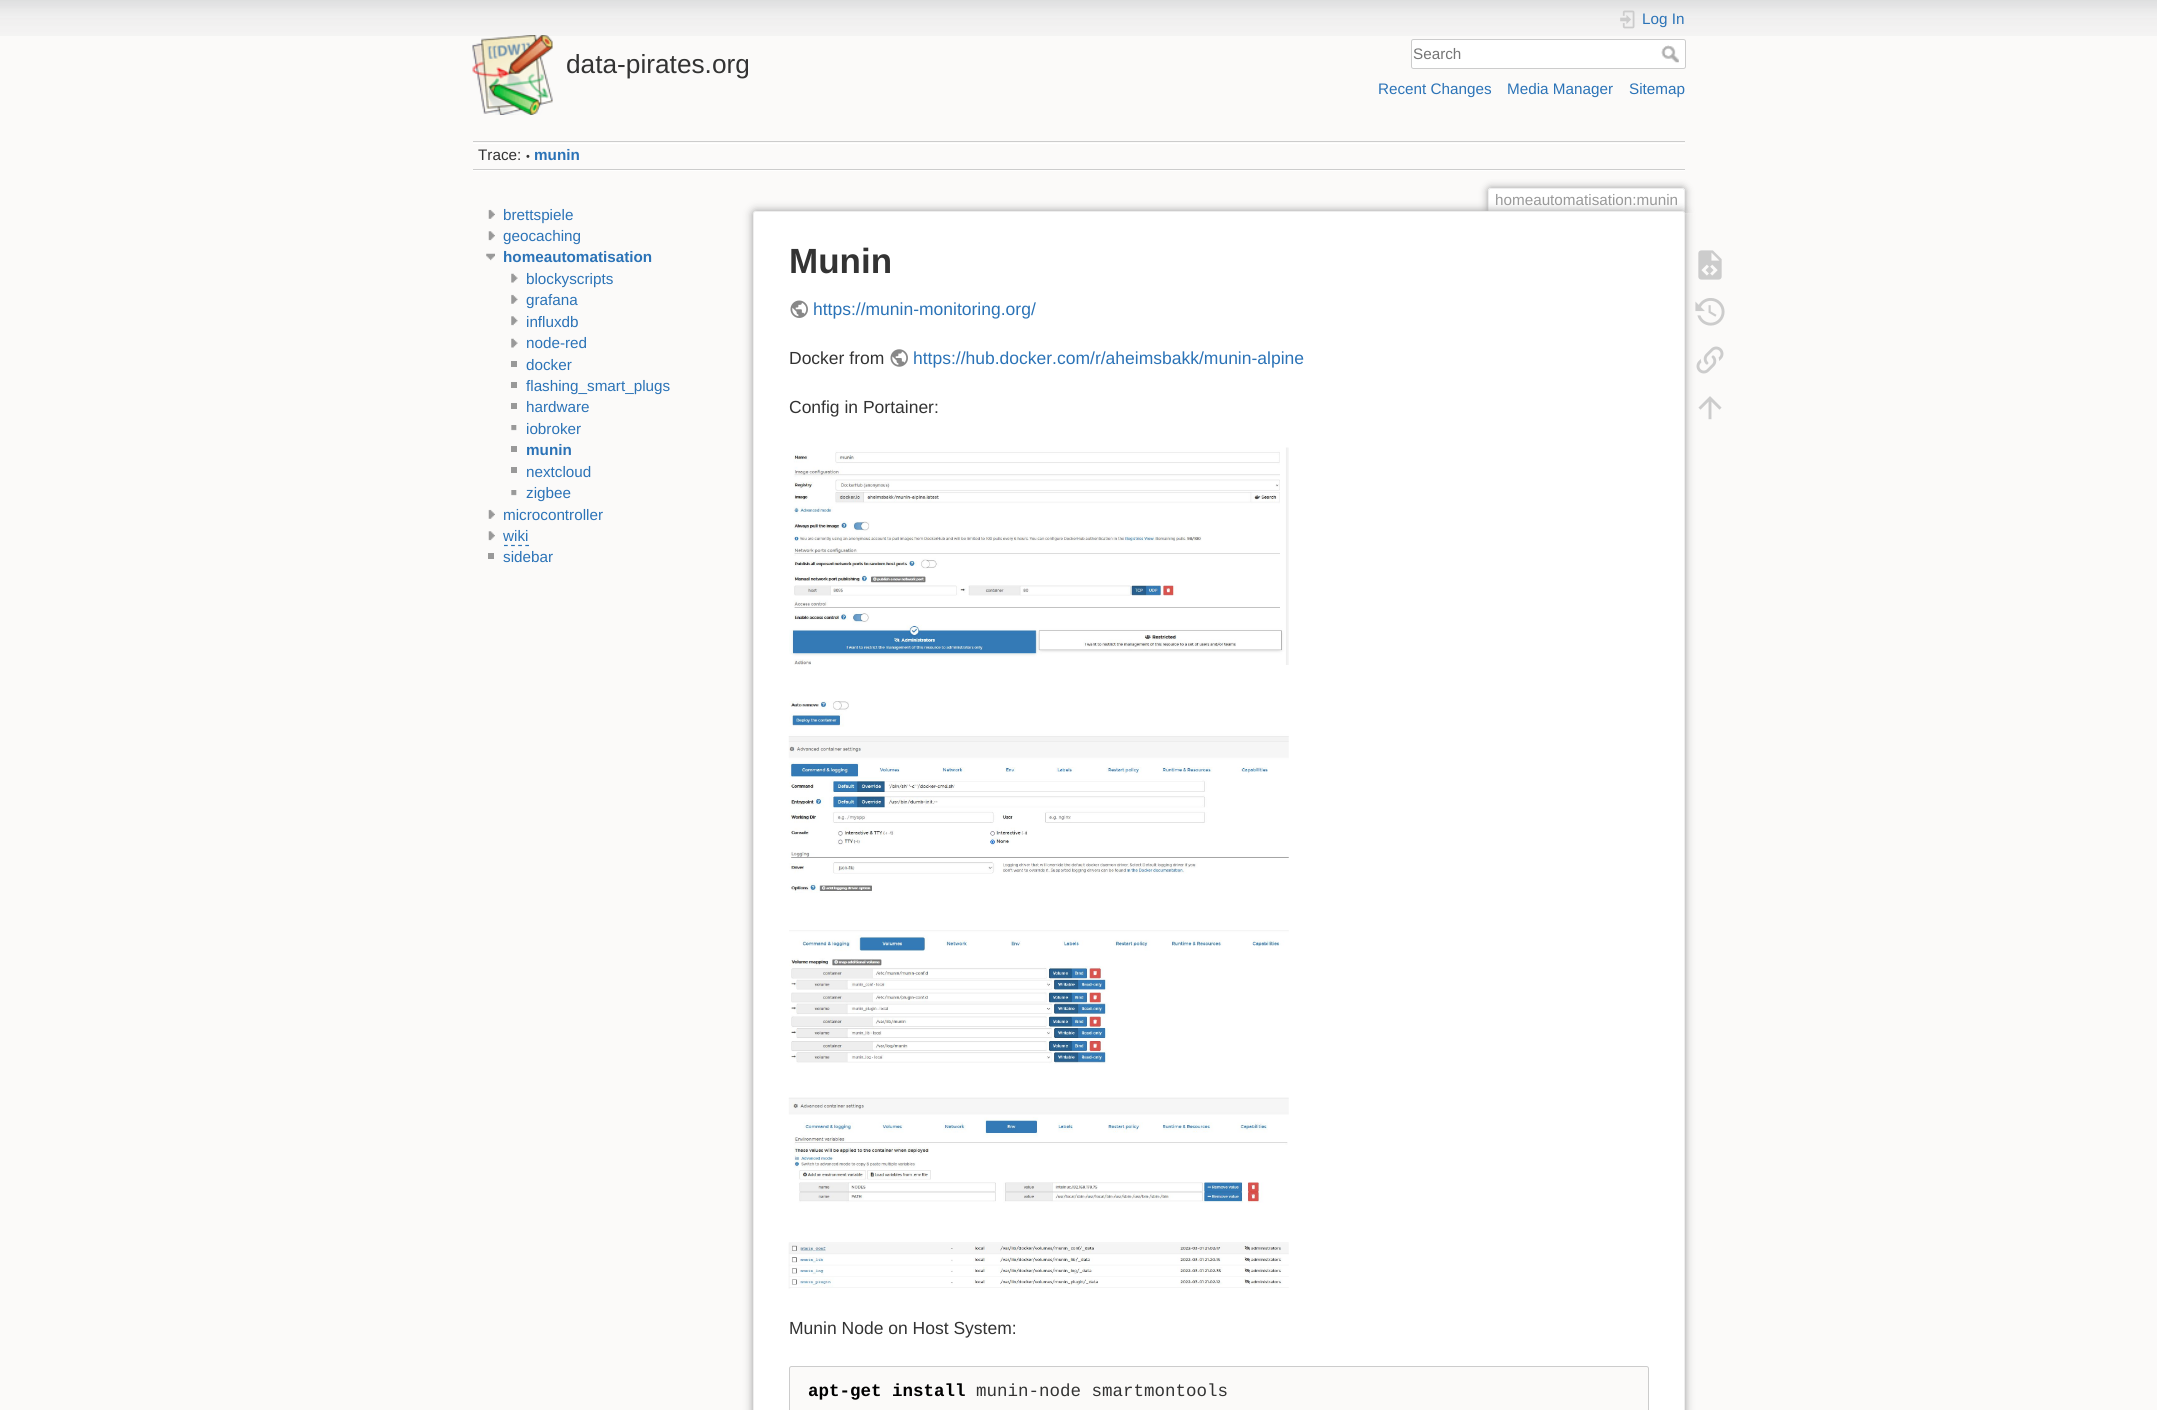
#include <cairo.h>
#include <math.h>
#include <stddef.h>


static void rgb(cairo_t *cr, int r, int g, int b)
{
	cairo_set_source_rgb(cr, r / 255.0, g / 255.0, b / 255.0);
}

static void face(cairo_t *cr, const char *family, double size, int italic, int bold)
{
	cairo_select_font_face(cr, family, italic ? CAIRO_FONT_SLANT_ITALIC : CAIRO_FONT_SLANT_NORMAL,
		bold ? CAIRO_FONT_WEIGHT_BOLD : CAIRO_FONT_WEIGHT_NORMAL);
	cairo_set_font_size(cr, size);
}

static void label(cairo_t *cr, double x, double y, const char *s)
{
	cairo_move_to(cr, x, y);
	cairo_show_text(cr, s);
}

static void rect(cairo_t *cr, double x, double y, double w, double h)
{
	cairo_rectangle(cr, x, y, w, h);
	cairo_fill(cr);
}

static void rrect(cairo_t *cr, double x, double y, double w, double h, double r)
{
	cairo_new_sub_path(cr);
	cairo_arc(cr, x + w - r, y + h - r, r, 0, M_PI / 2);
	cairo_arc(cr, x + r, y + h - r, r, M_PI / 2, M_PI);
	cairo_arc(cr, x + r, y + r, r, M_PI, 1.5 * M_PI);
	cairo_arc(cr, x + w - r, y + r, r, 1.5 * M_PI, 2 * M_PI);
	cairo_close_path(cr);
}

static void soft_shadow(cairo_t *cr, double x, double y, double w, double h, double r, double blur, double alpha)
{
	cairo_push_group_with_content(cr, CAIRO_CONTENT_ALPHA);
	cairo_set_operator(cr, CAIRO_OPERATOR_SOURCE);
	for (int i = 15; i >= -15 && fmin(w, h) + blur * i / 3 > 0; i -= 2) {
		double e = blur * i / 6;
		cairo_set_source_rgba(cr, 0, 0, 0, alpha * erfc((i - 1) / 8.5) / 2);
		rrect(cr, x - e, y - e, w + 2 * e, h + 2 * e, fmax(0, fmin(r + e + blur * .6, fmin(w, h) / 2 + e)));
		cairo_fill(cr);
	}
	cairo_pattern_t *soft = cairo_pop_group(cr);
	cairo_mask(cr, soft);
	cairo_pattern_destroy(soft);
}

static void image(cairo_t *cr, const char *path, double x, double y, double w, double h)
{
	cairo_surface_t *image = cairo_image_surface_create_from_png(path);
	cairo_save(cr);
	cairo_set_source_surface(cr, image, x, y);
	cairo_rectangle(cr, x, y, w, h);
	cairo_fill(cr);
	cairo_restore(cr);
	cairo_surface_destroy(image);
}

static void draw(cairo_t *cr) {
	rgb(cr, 251, 250, 249);
	cairo_paint(cr);
	image(cr, "image0.png", 0, 0, 2157, 36);
	image(cr, "image1.png", 472, 35, 81, 80);
	face(cr, "Liberation Sans", 26.25, 0, 0);
	rgb(cr, 51, 51, 51);
	label(cr, 566, 73, "data-pirates.org");
	image(cr, "image2.png", 1620, 10, 15, 19);
	face(cr, "Liberation Sans", 15.25, 0, 0);
	rgb(cr, 43, 115, 183);
	label(cr, 1642, 24, "Log In");
	rgb(cr, 255, 255, 255);
	rrect(cr, 1411.5, 39.5, 274, 29, 2);
	cairo_fill_preserve(cr);
	rgb(cr, 204, 204, 204);
	cairo_set_line_width(cr, 1);
	cairo_stroke(cr);
	rgb(cr, 117, 117, 117);
	label(cr, 1413, 59, "Search");
	image(cr, "image3.png", 1661, 45, 18, 18);
	rgb(cr, 43, 115, 183);
	label(cr, 1378, 94, "Recent Changes");
	label(cr, 1507, 94, "Media Manager");
	label(cr, 1629, 94, "Sitemap");
	rgb(cr, 204, 204, 204);
	rect(cr, 473, 141, 1212, 1);
	rgb(cr, 255, 255, 255);
	rect(cr, 473, 170, 1212, 1);
	rect(cr, 473, 143, 1212, 1);
	rgb(cr, 204, 204, 204);
	rect(cr, 473, 169, 1212, 1);
	rgb(cr, 51, 51, 51);
	label(cr, 478, 160, "Trace:");
	face(cr, "Liberation Sans", 11, 0, 0);
	label(cr, 526, 160, "•");
	face(cr, "Liberation Sans", 15.25, 0, 1);
	rgb(cr, 43, 115, 183);
	label(cr, 534, 160, "munin");
	image(cr, "image4.png", 488, 209, 7, 10);
	face(cr, "Liberation Sans", 15.25, 0, 0);
	label(cr, 503, 220, "brettspiele");
	image(cr, "image5.png", 488, 231, 7, 10);
	label(cr, 503, 241, "geocaching");
	image(cr, "image6.png", 486, 253, 9, 8);
	face(cr, "Liberation Sans", 15.25, 0, 1);
	label(cr, 503, 262, "homeautomatisation");
	image(cr, "image7.png", 511, 273, 7, 10);
	face(cr, "Liberation Sans", 15.25, 0, 0);
	label(cr, 526, 284, "blockyscripts");
	image(cr, "image8.png", 511, 294, 7, 10);
	label(cr, 526, 305, "grafana");
	image(cr, "image9.png", 511, 316, 7, 10);
	label(cr, 526, 327, "influxdb");
	image(cr, "image7.png", 511, 338, 7, 10);
	label(cr, 526, 348, "node-red");
	rgb(cr, 153, 153, 153);
	rect(cr, 511, 361, 6, 6);
	rgb(cr, 43, 115, 183);
	label(cr, 526, 370, "docker");
	rgb(cr, 153, 153, 153);
	rect(cr, 511, 382, 6, 6);
	rgb(cr, 43, 115, 183);
	label(cr, 526, 391, "flashing_smart_plugs");
	rgb(cr, 153, 153, 153);
	rect(cr, 511, 403, 6, 6);
	rgb(cr, 43, 115, 183);
	label(cr, 526, 412, "hardware");
	image(cr, "image10.png", 511, 425, 6, 6);
	label(cr, 526, 434, "iobroker");
	rgb(cr, 153, 153, 153);
	rect(cr, 511, 446, 6, 6);
	face(cr, "Liberation Sans", 15.25, 0, 1);
	rgb(cr, 43, 115, 183);
	label(cr, 526, 455, "munin");
	rgb(cr, 153, 153, 153);
	rect(cr, 511, 467, 6, 6);
	face(cr, "Liberation Sans", 15.25, 0, 0);
	rgb(cr, 43, 115, 183);
	label(cr, 526, 477, "nextcloud");
	image(cr, "image10.png", 511, 490, 6, 6);
	label(cr, 526, 498, "zigbee");
	image(cr, "image4.png", 488, 509, 7, 10);
	label(cr, 503, 520, "microcontroller");
	image(cr, "image5.png", 488, 531, 7, 10);
	label(cr, 503, 541, "wiki");
	cairo_new_path(cr);
	cairo_move_to(cr, 504, 545.5);
	cairo_line_to(cr, 529, 545.5);
	cairo_set_line_width(cr, 1.2);
	cairo_set_dash(cr, (double[]){3.75, 3.34}, 2, 0);
	cairo_stroke(cr);
	rgb(cr, 153, 153, 153);
	rect(cr, 488, 553, 6, 6);
	rgb(cr, 43, 115, 183);
	label(cr, 503, 562, "sidebar");
	cairo_save(cr);
	cairo_rectangle(cr, 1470, 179, 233, 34);
	cairo_clip(cr);
	rgb(cr, 153, 153, 153);
	soft_shadow(cr, 1488, 188, 197, 25, 2.5, 4, 1);
	cairo_restore(cr);
	rgb(cr, 255, 255, 255);
	cairo_new_path(cr);
	cairo_move_to(cr, 1490, 189);
	cairo_line_to(cr, 1683, 189);
	cairo_curve_to(cr, 1683.5, 189, 1684, 189.5, 1684, 190);
	cairo_line_to(cr, 1684, 213);
	cairo_line_to(cr, 1489, 213);
	cairo_line_to(cr, 1489, 190);
	cairo_curve_to(cr, 1489, 189.5, 1489.5, 189, 1490, 189);
	cairo_close_path(cr);
	cairo_fill(cr);
	rgb(cr, 238, 238, 238);
	rect(cr, 1489, 188, 195, 1);
	rect(cr, 1684, 189, 1, 24);
	rect(cr, 1488, 189, 1, 24);
	rgb(cr, 153, 153, 153);
	label(cr, 1495, 205, "homeautomatisation:munin");
	rgb(cr, 153, 153, 153);
	soft_shadow(cr, 753, 211, 932, 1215, 2.5, 4.5, 1);
	rgb(cr, 255, 255, 255);
	rrect(cr, 753.5, 211.5, 931, 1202, 2);
	cairo_fill_preserve(cr);
	rgb(cr, 238, 238, 238);
	cairo_set_line_width(cr, 1);
	cairo_set_dash(cr, NULL, 0, 0);
	cairo_stroke(cr);
	face(cr, "Liberation Sans", 35, 0, 1);
	rgb(cr, 51, 51, 51);
	label(cr, 789, 273, "Munin");
	image(cr, "image11.png", 790, 300, 18, 18);
	face(cr, "Liberation Sans", 17.5, 0, 0);
	rgb(cr, 43, 115, 183);
	label(cr, 813, 315, "https://munin-monitoring.org/");
	rgb(cr, 51, 51, 51);
	label(cr, 789, 364, "Docker from");
	image(cr, "image12.png", 890, 349, 18, 18);
	rgb(cr, 43, 115, 183);
	label(cr, 913, 364, "https://hub.docker.com/r/aheimsbakk/munin-alpine");
	rgb(cr, 51, 51, 51);
	label(cr, 789, 413, "Config in Portainer:");
	image(cr, "image13.png", 789, 447, 500, 218);
	image(cr, "image14.png", 788, 701, 501, 192);
	image(cr, "image15.png", 789, 930, 500, 134);
	image(cr, "image16.png", 788, 1097, 501, 106);
	image(cr, "image17.png", 788, 1242, 501, 47);
	label(cr, 789, 1334, "Munin Node on Host System:");
	rgb(cr, 251, 250, 249);
	rrect(cr, 789.5, 1366.5, 859, 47, 2);
	cairo_fill_preserve(cr);
	rgb(cr, 204, 204, 204);
	cairo_stroke(cr);
	face(cr, "Liberation Mono", 17.5, 0, 1);
	rgb(cr, 0, 0, 0);
	label(cr, 808, 1396, "apt-get install");
	face(cr, "Liberation Mono", 17.5, 0, 0);
	rgb(cr, 51, 51, 51);
	label(cr, 976, 1396, "munin-node smartmontools");
	image(cr, "image18.png", 1698, 250, 24, 30);
	image(cr, "image19.png", 1695, 298, 30, 28);
	image(cr, "image20.png", 1696, 346, 28, 28);
	image(cr, "image21.png", 1698, 396, 24, 24);
}

int main(void) {
	cairo_surface_t *surface = cairo_image_surface_create(CAIRO_FORMAT_RGB24, 2157, 1410);
	cairo_t *cr = cairo_create(surface);
	cairo_font_options_t *options = cairo_font_options_create();
	cairo_font_options_set_hint_metrics(options, CAIRO_HINT_METRICS_OFF);
	cairo_font_options_set_hint_style(options, CAIRO_HINT_STYLE_NONE);
	cairo_set_font_options(cr, options);
	cairo_set_miter_limit(cr, 4);
	draw(cr);
	cairo_surface_write_to_png(surface, "render.png");
	cairo_font_options_destroy(options);
	cairo_destroy(cr);
	cairo_surface_destroy(surface);
	return 0;
}
